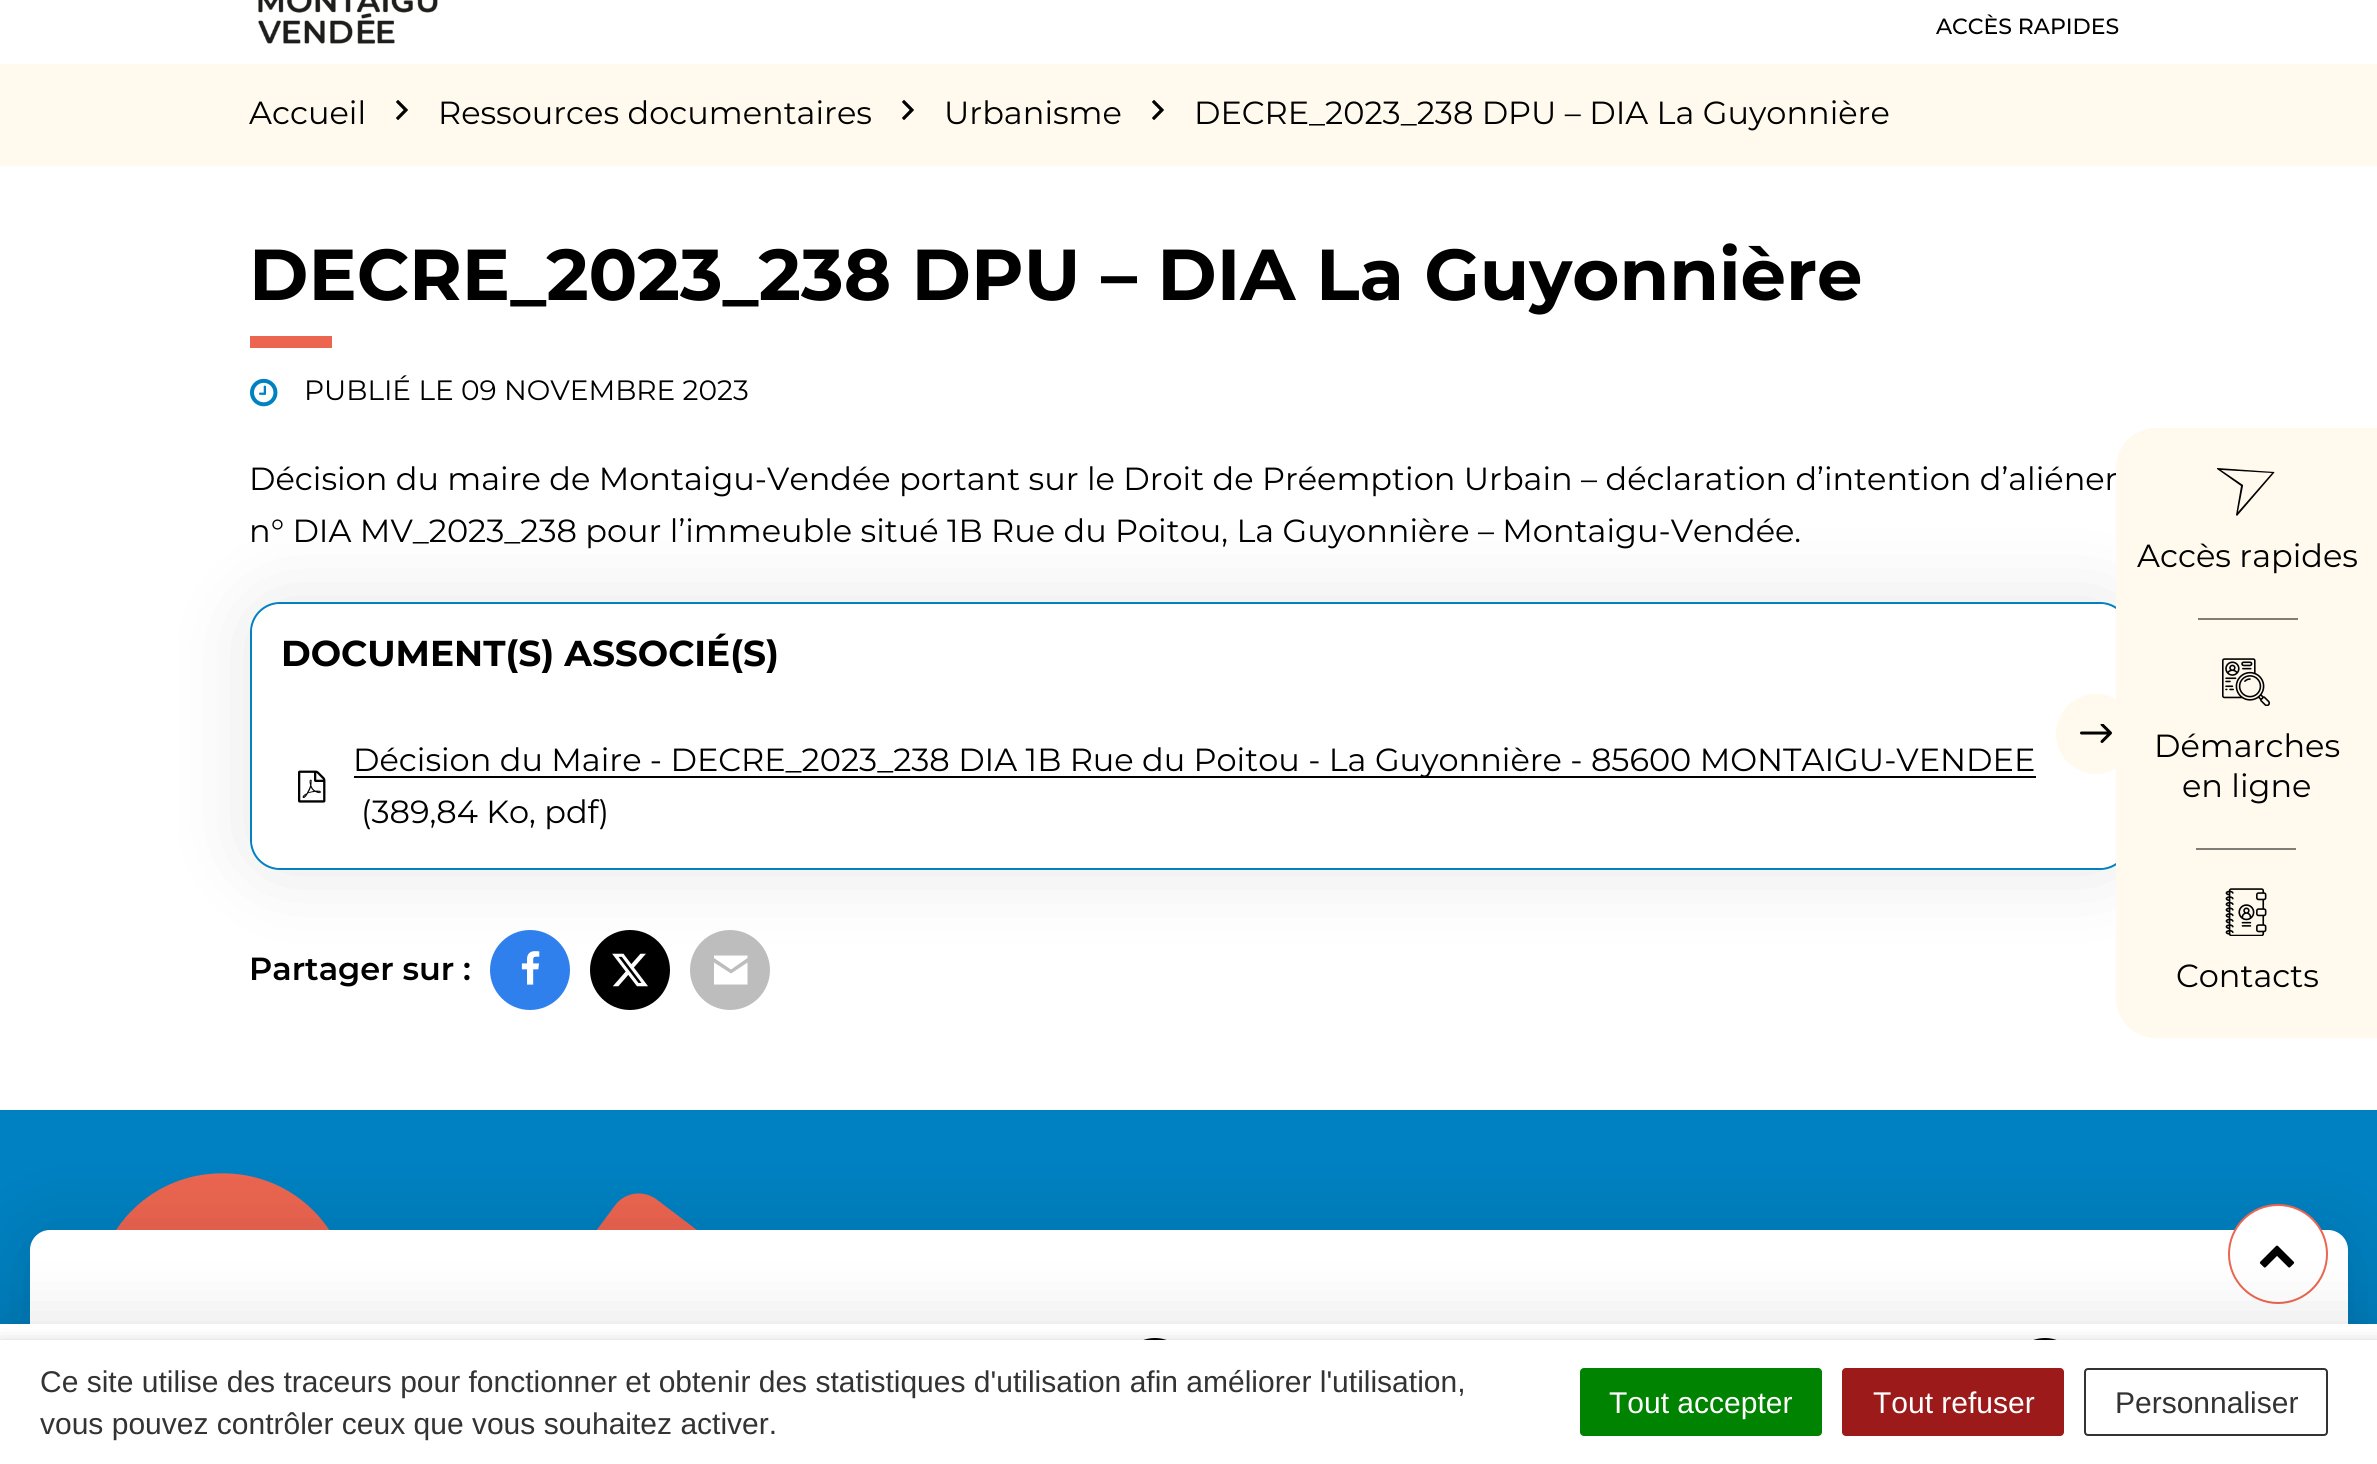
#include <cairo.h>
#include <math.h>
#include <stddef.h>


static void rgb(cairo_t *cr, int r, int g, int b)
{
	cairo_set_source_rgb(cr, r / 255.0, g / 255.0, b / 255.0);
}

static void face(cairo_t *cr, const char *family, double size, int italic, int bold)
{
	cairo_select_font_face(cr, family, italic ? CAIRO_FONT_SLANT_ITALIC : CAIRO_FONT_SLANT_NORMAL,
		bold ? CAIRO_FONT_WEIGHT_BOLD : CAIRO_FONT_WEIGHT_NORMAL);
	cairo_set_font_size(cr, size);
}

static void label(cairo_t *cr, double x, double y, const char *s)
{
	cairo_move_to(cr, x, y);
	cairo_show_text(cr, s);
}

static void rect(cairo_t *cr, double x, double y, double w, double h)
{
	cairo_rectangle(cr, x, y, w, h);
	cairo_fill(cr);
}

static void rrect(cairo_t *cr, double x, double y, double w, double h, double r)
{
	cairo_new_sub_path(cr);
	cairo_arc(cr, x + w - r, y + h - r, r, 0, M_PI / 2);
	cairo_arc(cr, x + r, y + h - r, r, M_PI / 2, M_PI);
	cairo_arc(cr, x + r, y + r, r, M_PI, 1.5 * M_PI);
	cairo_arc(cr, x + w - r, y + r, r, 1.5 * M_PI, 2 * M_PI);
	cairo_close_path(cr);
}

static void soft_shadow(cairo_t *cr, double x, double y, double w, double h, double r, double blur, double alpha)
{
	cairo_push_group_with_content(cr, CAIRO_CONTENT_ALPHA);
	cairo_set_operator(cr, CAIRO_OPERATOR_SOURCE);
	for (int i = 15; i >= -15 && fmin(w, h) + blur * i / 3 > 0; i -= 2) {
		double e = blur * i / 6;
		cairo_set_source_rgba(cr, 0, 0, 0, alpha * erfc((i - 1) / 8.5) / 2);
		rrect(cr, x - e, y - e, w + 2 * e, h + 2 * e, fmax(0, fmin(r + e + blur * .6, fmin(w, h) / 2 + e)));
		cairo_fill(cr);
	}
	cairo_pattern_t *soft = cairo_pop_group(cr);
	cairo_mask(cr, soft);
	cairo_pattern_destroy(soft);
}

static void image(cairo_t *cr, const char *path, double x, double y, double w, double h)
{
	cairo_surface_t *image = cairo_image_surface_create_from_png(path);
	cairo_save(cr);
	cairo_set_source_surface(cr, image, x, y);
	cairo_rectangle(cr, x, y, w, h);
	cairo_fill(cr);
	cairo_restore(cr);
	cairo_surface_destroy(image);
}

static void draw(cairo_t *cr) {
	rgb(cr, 255, 255, 255);
	cairo_paint(cr);
	image(cr, "image0.png", 258, 0, 180, 44);
	face(cr, "Montserrat Medium", 22, 0, 0);
	rgb(cr, 0, 0, 0);
	label(cr, 1936, 34, "ACCÈS RAPIDES");
	rgb(cr, 0, 129, 193);
	rect(cr, 0, 1110, 2377, 214);
	image(cr, "image9.png", 116, 1173, 581, 57);
	rgb(cr, 0, 0, 0);
	soft_shadow(cr, 30, 1238, 2318, 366, 20, 40, 0.15);
	rgb(cr, 255, 255, 255);
	rrect(cr, 30, 1230, 2318, 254, 20);
	cairo_fill(cr);
	cairo_arc(cr, 2278, 1254, 49, 0, 2 * M_PI);
	cairo_fill_preserve(cr);
	rgb(cr, 236, 101, 80);
	cairo_stroke(cr);
	image(cr, "image10.png", 2259, 1245, 36, 23);
	rgb(cr, 0, 0, 0);
	soft_shadow(cr, 0, 1316, 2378, 140, 0, 30, 0.1);
	rgb(cr, 255, 255, 255);
	rect(cr, 0, 1324, 2377, 16);
	cairo_arc(cr, 1155, 1373, 34, 0, 2 * M_PI);
	rgb(cr, 0, 0, 0);
	cairo_stroke(cr);
	cairo_arc(cr, 2045, 1373, 34, 0, 2 * M_PI);
	cairo_stroke(cr);
	rgb(cr, 255, 250, 237);
	rect(cr, 0, 64, 2377, 102);
	face(cr, "Montserrat", 32, 0, 0);
	rgb(cr, 0, 0, 0);
	label(cr, 249, 124, "Accueil");
	image(cr, "image1.png", 396, 100, 12, 20);
	label(cr, 438, 124, "Ressources documentaires");
	image(cr, "image1.png", 902, 100, 12, 20);
	label(cr, 944, 124, "Urbanisme");
	image(cr, "image1.png", 1152, 100, 12, 20);
	label(cr, 1194, 124, "DECRE_2023_238 DPU – DIA La Guyonnière");
	face(cr, "Montserrat", 72, 0, 1);
	label(cr, 249, 300, "DECRE_2023_238 DPU – DIA La Guyonnière");
	rgb(cr, 236, 101, 80);
	rect(cr, 250, 336, 82, 12);
	image(cr, "image2.png", 250, 378, 28, 29);
	face(cr, "Montserrat", 28, 0, 0);
	rgb(cr, 0, 0, 0);
	label(cr, 304, 400, "PUBLIÉ LE 09 NOVEMBRE 2023");
	rgb(cr, 0, 0, 0);
	soft_shadow(cr, 250, 602, 1880, 268, 30, 40, 0.1);
	face(cr, "Montserrat", 32, 0, 0);
	rgb(cr, 0, 0, 0);
	label(cr, 249, 490, "Décision du maire de Montaigu-Vendée portant sur le Droit de Préemption Urbain – déclaration d’intention d’aliéner");
	label(cr, 249, 542, "n° DIA MV_2023_238 pour l’immeuble situé 1B Rue du Poitou, La Guyonnière – Montaigu-Vendée.");
	rgb(cr, 255, 255, 255);
	rrect(cr, 251, 603, 1878, 266, 29);
	cairo_fill_preserve(cr);
	rgb(cr, 0, 129, 193);
	cairo_stroke(cr);
	rgb(cr, 255, 255, 255);
	cairo_new_path(cr);
	cairo_move_to(cr, 282, 604);
	cairo_line_to(cr, 2098, 604);
	cairo_curve_to(cr, 2114.5, 604, 2128, 617.5, 2128, 634);
	cairo_line_to(cr, 2128, 704);
	cairo_line_to(cr, 252, 704);
	cairo_line_to(cr, 252, 634);
	cairo_curve_to(cr, 252, 617.5, 265.5, 604, 282, 604);
	cairo_close_path(cr);
	cairo_fill(cr);
	face(cr, "Montserrat", 36, 0, 1);
	rgb(cr, 0, 0, 0);
	label(cr, 281, 666, "DOCUMENT(S) ASSOCIÉ(S)");
	rgb(cr, 255, 255, 255);
	cairo_new_path(cr);
	cairo_move_to(cr, 252, 704);
	cairo_line_to(cr, 2128, 704);
	cairo_line_to(cr, 2128, 838);
	cairo_curve_to(cr, 2128, 854.5, 2114.5, 868, 2098, 868);
	cairo_line_to(cr, 282, 868);
	cairo_curve_to(cr, 265.5, 868, 252, 854.5, 252, 838);
	cairo_close_path(cr);
	cairo_fill(cr);
	rgb(cr, 0, 0, 0);
	rect(cr, 354, 776, 1682, 2);
	face(cr, "Montserrat", 32, 0, 0);
	label(cr, 353, 771, "Décision du Maire - DECRE_2023_238 DIA 1B Rue du Poitou - La Guyonnière - 85600 MONTAIGU-VENDEE");
	image(cr, "image3.png", 298, 770, 28, 33);
	label(cr, 361, 823, "(389,84 Ko, pdf)");
	face(cr, "Montserrat SemiBold", 32, 0, 0);
	label(cr, 249, 980, "Partager sur :");
	rgb(cr, 47, 128, 237);
	cairo_new_path(cr);
	cairo_arc(cr, 530, 970, 40, 0, 2 * M_PI);
	cairo_fill(cr);
	image(cr, "image4.png", 521, 951, 19, 34);
	rgb(cr, 0, 0, 0);
	cairo_arc(cr, 630, 970, 40, 0, 2 * M_PI);
	cairo_fill(cr);
	image(cr, "image5.png", 612, 953, 36, 34);
	rgb(cr, 189, 189, 189);
	cairo_arc(cr, 730, 970, 40, 0, 2 * M_PI);
	cairo_fill(cr);
	rgb(cr, 255, 255, 255);
	cairo_set_fill_rule(cr, CAIRO_FILL_RULE_EVEN_ODD);
	cairo_new_path(cr);
	cairo_move_to(cr, 714, 955.5);
	cairo_line_to(cr, 714, 958);
	cairo_line_to(cr, 731, 969.5);
	cairo_line_to(cr, 747.5, 958);
	cairo_line_to(cr, 747.5, 955.5);
	cairo_close_path(cr);
	cairo_move_to(cr, 714, 962.5);
	cairo_line_to(cr, 714, 984.5);
	cairo_line_to(cr, 747.5, 984.5);
	cairo_line_to(cr, 747.5, 962.5);
	cairo_line_to(cr, 731, 973.5);
	cairo_close_path(cr);
	cairo_fill(cr);
	rgb(cr, 255, 250, 237);
	cairo_new_path(cr);
	cairo_move_to(cr, 2156, 428);
	cairo_line_to(cr, 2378, 428);
	cairo_line_to(cr, 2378, 1038);
	cairo_line_to(cr, 2156, 1038);
	cairo_curve_to(cr, 2134, 1038, 2116, 1020, 2116, 998);
	cairo_line_to(cr, 2116, 468);
	cairo_curve_to(cr, 2116, 446, 2134, 428, 2156, 428);
	cairo_close_path(cr);
	cairo_fill(cr);
	cairo_arc(cr, 2096, 734, 40, 0, 2 * M_PI);
	cairo_fill(cr);
	image(cr, "image6.png", 2080, 724, 32, 19);
	rgb(cr, 0, 0, 0);
	cairo_set_fill_rule(cr, CAIRO_FILL_RULE_WINDING);
	cairo_new_path(cr);
	cairo_move_to(cr, 2274, 472);
	cairo_line_to(cr, 2217, 468);
	cairo_line_to(cr, 2217, 469);
	cairo_line_to(cr, 2241, 486);
	cairo_line_to(cr, 2236, 515);
	cairo_line_to(cr, 2237, 516);
	cairo_line_to(cr, 2274, 473);
	cairo_curve_to(cr, 2275, 473, 2274, 472, 2274, 472);
	cairo_close_path(cr);
	cairo_move_to(cr, 2238, 512);
	cairo_line_to(cr, 2243, 486);
	cairo_line_to(cr, 2243, 485);
	cairo_line_to(cr, 2221, 470);
	cairo_line_to(cr, 2272, 473);
	cairo_close_path(cr);
	cairo_fill(cr);
	face(cr, "Montserrat", 32, 0, 0);
	label(cr, 2137, 567, "Accès rapides");
	rgb(cr, 128, 125, 119);
	rect(cr, 2198, 618, 100, 2);
	image(cr, "image7.png", 2222, 658, 48, 48);
	rgb(cr, 0, 0, 0);
	label(cr, 2154, 757, "Démarches");
	label(cr, 2182, 797, "en ligne");
	rgb(cr, 128, 125, 119);
	rect(cr, 2196, 848, 100, 2);
	image(cr, "image8.png", 2225, 888, 42, 48);
	rgb(cr, 0, 0, 0);
	label(cr, 2176, 987, "Contacts");
	rgb(cr, 0, 0, 0);
	soft_shadow(cr, 0, 1350, 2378, 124, 0, 10, 0.5);
	rgb(cr, 255, 255, 255);
	rect(cr, 0, 1340, 2377, 124);
	face(cr, "Liberation Sans", 30, 0, 0);
	rgb(cr, 51, 51, 51);
	label(cr, 40, 1392, "Ce site utilise des traceurs pour fonctionner et obtenir des statistiques d'utilisation afin améliorer l'utilisation,");
	label(cr, 40, 1434, "vous pouvez contrôler ceux que vous souhaitez activer.");
	rgb(cr, 0, 131, 0);
	rrect(cr, 1580, 1368, 242, 68, 4);
	cairo_fill(cr);
	rgb(cr, 255, 255, 255);
	label(cr, 1609, 1413, "Tout accepter");
	rgb(cr, 156, 26, 26);
	rrect(cr, 1842, 1368, 222, 68, 4);
	cairo_fill(cr);
	rgb(cr, 255, 255, 255);
	label(cr, 1873, 1413, "Tout refuser");
	rrect(cr, 2085, 1369, 242, 66, 3);
	rgb(cr, 51, 51, 51);
	cairo_stroke(cr);
	label(cr, 2115, 1413, "Personnaliser");
}

int main(void) {
	cairo_surface_t *surface = cairo_image_surface_create(CAIRO_FORMAT_RGB24, 2377, 1464);
	cairo_t *cr = cairo_create(surface);
	cairo_font_options_t *options = cairo_font_options_create();
	cairo_font_options_set_hint_metrics(options, CAIRO_HINT_METRICS_OFF);
	cairo_font_options_set_hint_style(options, CAIRO_HINT_STYLE_NONE);
	cairo_set_font_options(cr, options);
	cairo_set_miter_limit(cr, 4);
	draw(cr);
	cairo_surface_write_to_png(surface, "render.png");
	cairo_font_options_destroy(options);
	cairo_destroy(cr);
	cairo_surface_destroy(surface);
	return 0;
}
